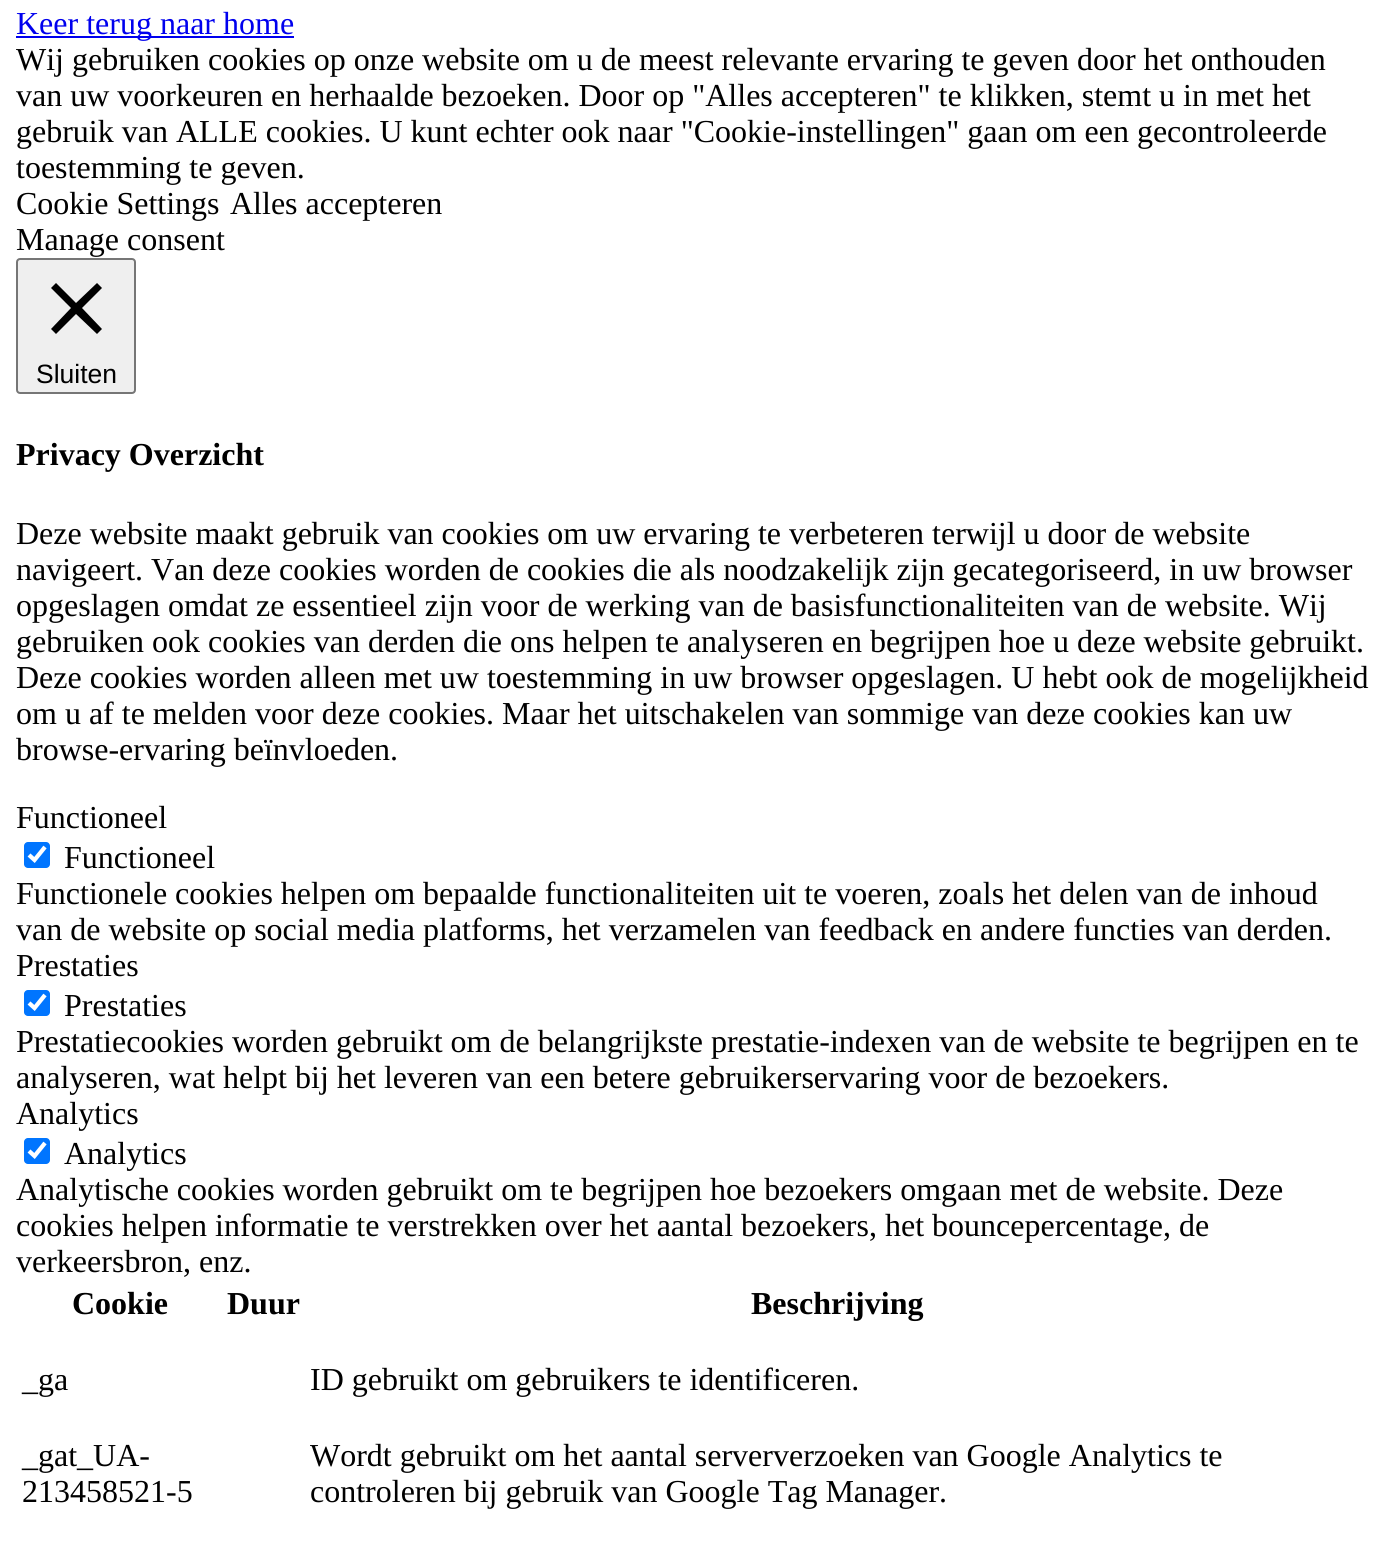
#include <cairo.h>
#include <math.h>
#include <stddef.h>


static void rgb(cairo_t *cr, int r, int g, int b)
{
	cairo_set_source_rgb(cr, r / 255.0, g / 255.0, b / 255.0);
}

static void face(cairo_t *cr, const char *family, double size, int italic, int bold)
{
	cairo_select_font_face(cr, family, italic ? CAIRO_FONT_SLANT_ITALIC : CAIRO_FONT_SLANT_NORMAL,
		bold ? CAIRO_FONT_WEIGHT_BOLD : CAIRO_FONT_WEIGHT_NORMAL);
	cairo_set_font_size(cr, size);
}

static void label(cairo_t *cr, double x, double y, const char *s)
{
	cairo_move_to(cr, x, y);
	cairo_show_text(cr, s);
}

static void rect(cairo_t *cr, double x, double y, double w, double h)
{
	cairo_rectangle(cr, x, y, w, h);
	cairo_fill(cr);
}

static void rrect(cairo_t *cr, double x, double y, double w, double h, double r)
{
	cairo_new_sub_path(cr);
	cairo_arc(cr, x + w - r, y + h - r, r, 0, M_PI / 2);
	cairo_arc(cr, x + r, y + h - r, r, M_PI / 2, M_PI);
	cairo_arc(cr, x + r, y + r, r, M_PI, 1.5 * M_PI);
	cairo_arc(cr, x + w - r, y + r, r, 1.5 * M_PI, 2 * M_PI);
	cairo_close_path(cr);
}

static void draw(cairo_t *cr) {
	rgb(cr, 255, 255, 255);
	cairo_paint(cr);
	rgb(cr, 0, 0, 238);
	rect(cr, 16, 36, 278, 2);
	face(cr, "Liberation Serif", 32, 0, 0);
	label(cr, 16, 34, "Keer terug naar home");
	rgb(cr, 0, 0, 0);
	label(cr, 16, 70, "Wij gebruiken cookies op onze website om u de meest relevante ervaring te geven door het onthouden");
	label(cr, 16, 106, "van uw voorkeuren en herhaalde bezoeken. Door op \"Alles accepteren\" te klikken, stemt u in met het");
	label(cr, 16, 142, "gebruik van ALLE cookies. U kunt echter ook naar \"Cookie-instellingen\" gaan om een gecontroleerde");
	label(cr, 16, 178, "toestemming te geven.");
	label(cr, 16, 214, "Cookie Settings");
	label(cr, 230, 214, "Alles accepteren");
	label(cr, 16, 250, "Manage consent");
	rgb(cr, 239, 239, 239);
	rrect(cr, 17, 259, 118, 134, 3);
	cairo_fill_preserve(cr);
	rgb(cr, 118, 118, 118);
	cairo_stroke(cr);
	rgb(cr, 0, 0, 0);
	cairo_new_path(cr);
	cairo_move_to(cr, 102, 288);
	cairo_line_to(cr, 97, 283);
	cairo_line_to(cr, 76, 303);
	cairo_line_to(cr, 56, 283);
	cairo_line_to(cr, 51, 288);
	cairo_line_to(cr, 71, 308);
	cairo_line_to(cr, 51, 329);
	cairo_line_to(cr, 56, 334);
	cairo_line_to(cr, 76, 314);
	cairo_line_to(cr, 97, 334);
	cairo_line_to(cr, 102, 329);
	cairo_line_to(cr, 82, 308);
	cairo_close_path(cr);
	cairo_fill(cr);
	face(cr, "Liberation Sans", 26.5, 0, 0);
	label(cr, 36, 383, "Sluiten");
	face(cr, "Liberation Serif", 32, 0, 1);
	label(cr, 16, 465, "Privacy Overzicht");
	face(cr, "Liberation Serif", 32, 0, 0);
	label(cr, 16, 544, "Deze website maakt gebruik van cookies om uw ervaring te verbeteren terwijl u door de website");
	label(cr, 16, 580, "navigeert. Van deze cookies worden de cookies die als noodzakelijk zijn gecategoriseerd, in uw browser");
	label(cr, 16, 616, "opgeslagen omdat ze essentieel zijn voor de werking van de basisfunctionaliteiten van de website. Wij");
	label(cr, 16, 652, "gebruiken ook cookies van derden die ons helpen te analyseren en begrijpen hoe u deze website gebruikt.");
	label(cr, 16, 688, "Deze cookies worden alleen met uw toestemming in uw browser opgeslagen. U hebt ook de mogelijkheid");
	label(cr, 16, 724, "om u af te melden voor deze cookies. Maar het uitschakelen van sommige van deze cookies kan uw");
	label(cr, 16, 760, "browse-ervaring beïnvloeden.");
	label(cr, 16, 828, "Functioneel");
	rgb(cr, 0, 117, 255);
	rrect(cr, 24, 842, 26, 26, 4);
	cairo_fill(cr);
	cairo_new_path(cr);
	cairo_move_to(cr, 29, 855);
	cairo_line_to(cr, 34.5, 860);
	cairo_line_to(cr, 45, 847);
	rgb(cr, 255, 255, 255);
	cairo_set_line_width(cr, 4.2);
	cairo_stroke(cr);
	rgb(cr, 0, 0, 0);
	label(cr, 64, 868, "Functioneel");
	label(cr, 16, 904, "Functionele cookies helpen om bepaalde functionaliteiten uit te voeren, zoals het delen van de inhoud");
	label(cr, 16, 940, "van de website op social media platforms, het verzamelen van feedback en andere functies van derden.");
	label(cr, 16, 976, "Prestaties");
	rgb(cr, 0, 117, 255);
	rrect(cr, 24, 990, 26, 26, 4);
	cairo_fill(cr);
	cairo_new_path(cr);
	cairo_move_to(cr, 29, 1003);
	cairo_line_to(cr, 34.5, 1008);
	cairo_line_to(cr, 45, 995);
	rgb(cr, 255, 255, 255);
	cairo_stroke(cr);
	rgb(cr, 0, 0, 0);
	label(cr, 64, 1016, "Prestaties");
	label(cr, 16, 1052, "Prestatiecookies worden gebruikt om de belangrijkste prestatie-indexen van de website te begrijpen en te");
	label(cr, 16, 1088, "analyseren, wat helpt bij het leveren van een betere gebruikerservaring voor de bezoekers.");
	label(cr, 16, 1124, "Analytics");
	rgb(cr, 0, 117, 255);
	rrect(cr, 24, 1138, 26, 26, 4);
	cairo_fill(cr);
	cairo_new_path(cr);
	cairo_move_to(cr, 29, 1151);
	cairo_line_to(cr, 34.5, 1156);
	cairo_line_to(cr, 45, 1143);
	rgb(cr, 255, 255, 255);
	cairo_stroke(cr);
	rgb(cr, 0, 0, 0);
	label(cr, 64, 1164, "Analytics");
	label(cr, 16, 1200, "Analytische cookies worden gebruikt om te begrijpen hoe bezoekers omgaan met de website. Deze");
	label(cr, 16, 1236, "cookies helpen informatie te verstrekken over het aantal bezoekers, het bouncepercentage, de");
	label(cr, 16, 1272, "verkeersbron, enz.");
	face(cr, "Liberation Serif", 32, 0, 1);
	label(cr, 72, 1314, "Cookie");
	label(cr, 227, 1314, "Duur");
	label(cr, 751, 1314, "Beschrijving");
	face(cr, "Liberation Serif", 32, 0, 0);
	label(cr, 22, 1390, "_ga");
	label(cr, 310, 1390, "ID gebruikt om gebruikers te identificeren.");
	label(cr, 22, 1466, "_gat_UA-");
	label(cr, 22, 1502, "213458521-5");
	label(cr, 310, 1466, "Wordt gebruikt om het aantal serververzoeken van Google Analytics te");
	label(cr, 310, 1502, "controleren bij gebruik van Google Tag Manager.");
}

int main(void) {
	cairo_surface_t *surface = cairo_image_surface_create(CAIRO_FORMAT_RGB24, 1385, 1552);
	cairo_t *cr = cairo_create(surface);
	cairo_font_options_t *options = cairo_font_options_create();
	cairo_font_options_set_hint_metrics(options, CAIRO_HINT_METRICS_OFF);
	cairo_font_options_set_hint_style(options, CAIRO_HINT_STYLE_NONE);
	cairo_set_font_options(cr, options);
	cairo_set_miter_limit(cr, 4);
	draw(cr);
	cairo_surface_write_to_png(surface, "render.png");
	cairo_font_options_destroy(options);
	cairo_destroy(cr);
	cairo_surface_destroy(surface);
	return 0;
}
